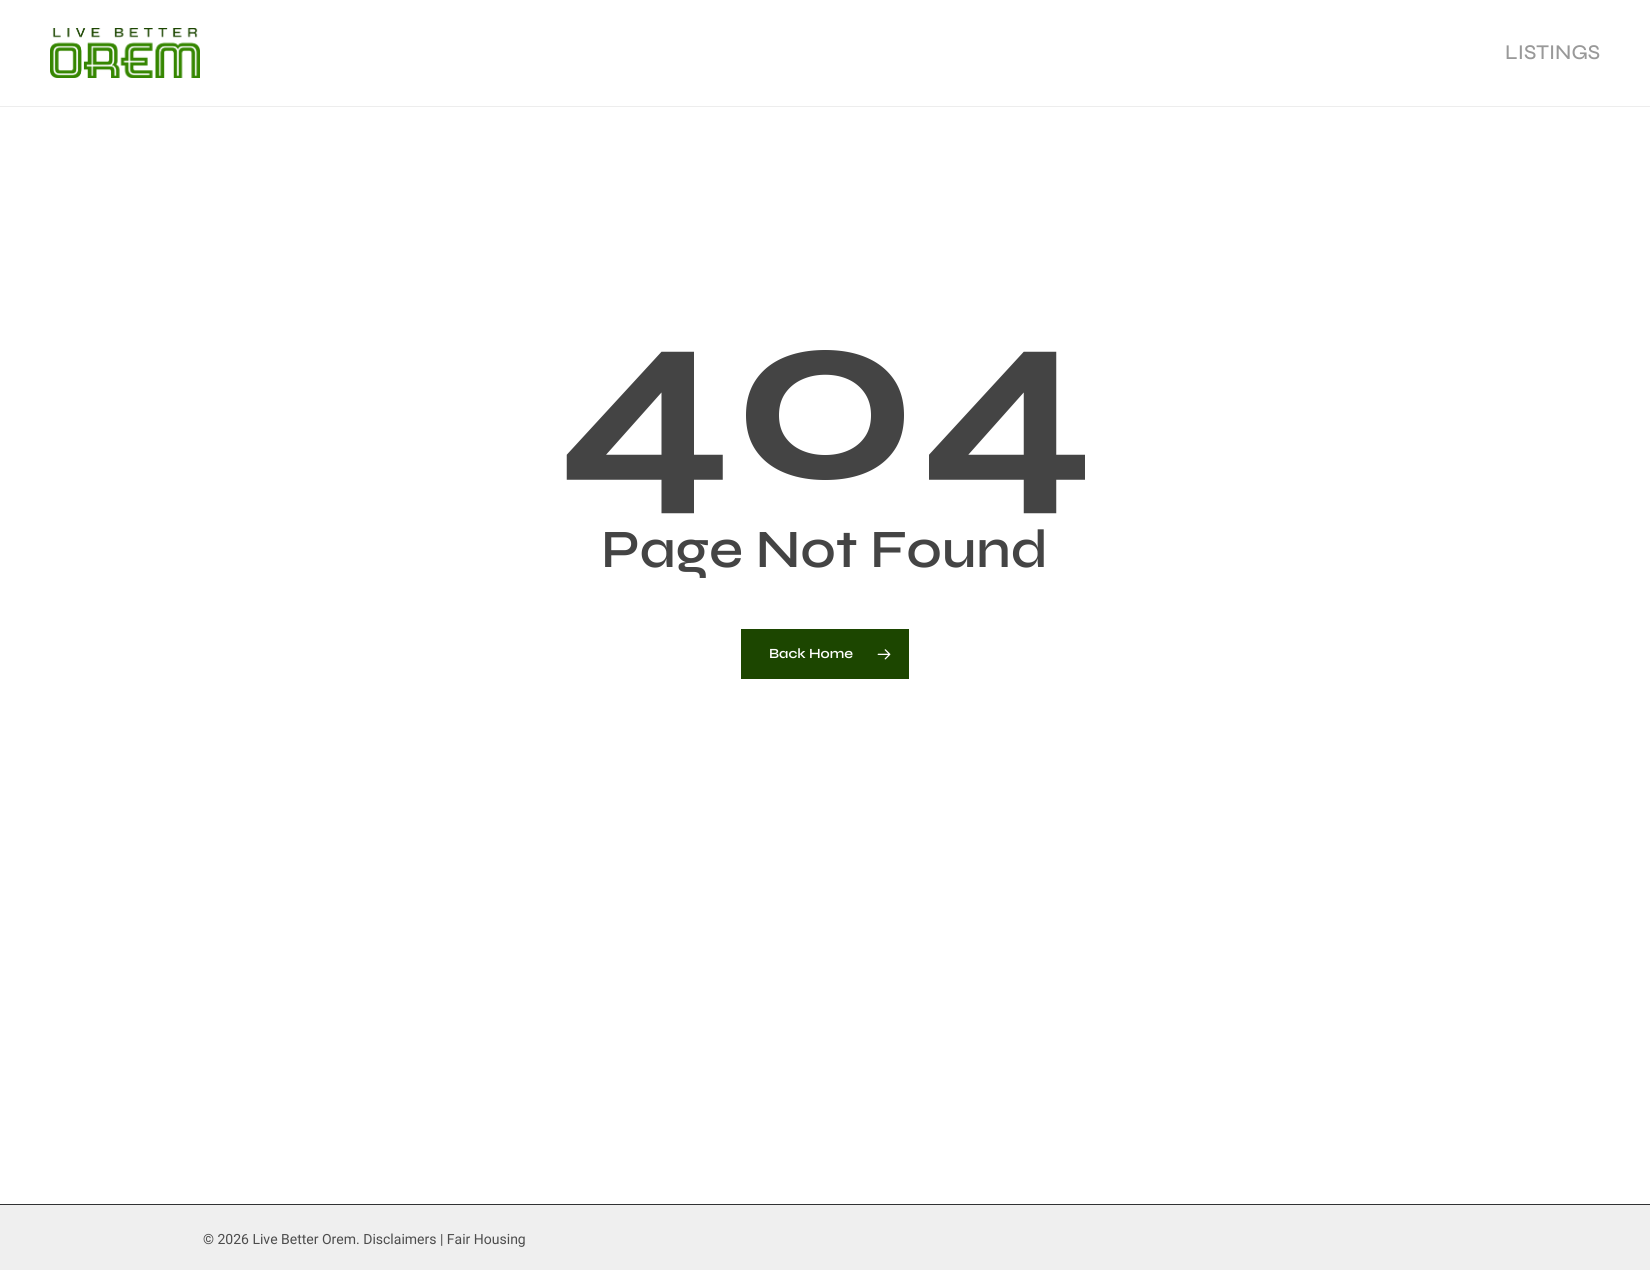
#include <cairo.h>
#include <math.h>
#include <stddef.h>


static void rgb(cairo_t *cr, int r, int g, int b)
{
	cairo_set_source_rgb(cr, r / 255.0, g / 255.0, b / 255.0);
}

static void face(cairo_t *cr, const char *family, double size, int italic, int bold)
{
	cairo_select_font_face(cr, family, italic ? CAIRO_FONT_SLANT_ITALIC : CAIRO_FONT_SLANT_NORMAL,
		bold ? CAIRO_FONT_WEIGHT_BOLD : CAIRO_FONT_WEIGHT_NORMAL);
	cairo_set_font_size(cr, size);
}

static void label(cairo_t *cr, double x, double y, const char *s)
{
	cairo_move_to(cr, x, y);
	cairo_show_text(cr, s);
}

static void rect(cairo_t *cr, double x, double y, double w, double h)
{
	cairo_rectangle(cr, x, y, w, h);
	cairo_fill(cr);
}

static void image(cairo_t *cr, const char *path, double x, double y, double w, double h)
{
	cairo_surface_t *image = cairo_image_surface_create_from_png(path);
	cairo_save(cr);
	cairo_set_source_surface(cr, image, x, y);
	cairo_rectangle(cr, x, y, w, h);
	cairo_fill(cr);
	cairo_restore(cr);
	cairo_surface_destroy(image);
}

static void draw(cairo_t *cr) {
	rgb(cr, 255, 255, 255);
	cairo_paint(cr);
	rgb(cr, 237, 237, 237);
	rect(cr, 0, 106, 1650, 1);
	image(cr, "image0.png", 50, 28, 150, 50);
	face(cr, "Syne Medium", 21, 0, 0);
	rgb(cr, 153, 153, 153);
	label(cr, 1505, 59, "LISTINGS");
	face(cr, "Syne", 250, 0, 1);
	rgb(cr, 68, 68, 68);
	label(cr, 555, 477, "404");
	face(cr, "Syne SemiBold", 54, 0, 0);
	label(cr, 601, 567, "Page Not Found");
	rgb(cr, 28, 70, 0);
	rect(cr, 741, 629, 168, 50);
	face(cr, "Syne SemiBold", 14, 0, 0);
	rgb(cr, 255, 255, 255);
	label(cr, 769, 658, "Back Home");
	image(cr, "image1.png", 877, 649, 14, 11);
	rgb(cr, 49, 50, 51);
	rect(cr, 0, 1204, 1650, 1);
	rgb(cr, 239, 239, 239);
	rect(cr, 0, 1205, 1650, 65);
	face(cr, "Roboto", 14, 0, 0);
	rgb(cr, 76, 76, 76);
	label(cr, 203, 1244, "© 2026 Live Better Orem. Disclaimers | Fair Housing");
}

int main(void) {
	cairo_surface_t *surface = cairo_image_surface_create(CAIRO_FORMAT_RGB24, 1650, 1270);
	cairo_t *cr = cairo_create(surface);
	cairo_font_options_t *options = cairo_font_options_create();
	cairo_font_options_set_hint_metrics(options, CAIRO_HINT_METRICS_OFF);
	cairo_font_options_set_hint_style(options, CAIRO_HINT_STYLE_NONE);
	cairo_set_font_options(cr, options);
	cairo_set_miter_limit(cr, 4);
	draw(cr);
	cairo_surface_write_to_png(surface, "render.png");
	cairo_font_options_destroy(options);
	cairo_destroy(cr);
	cairo_surface_destroy(surface);
	return 0;
}
